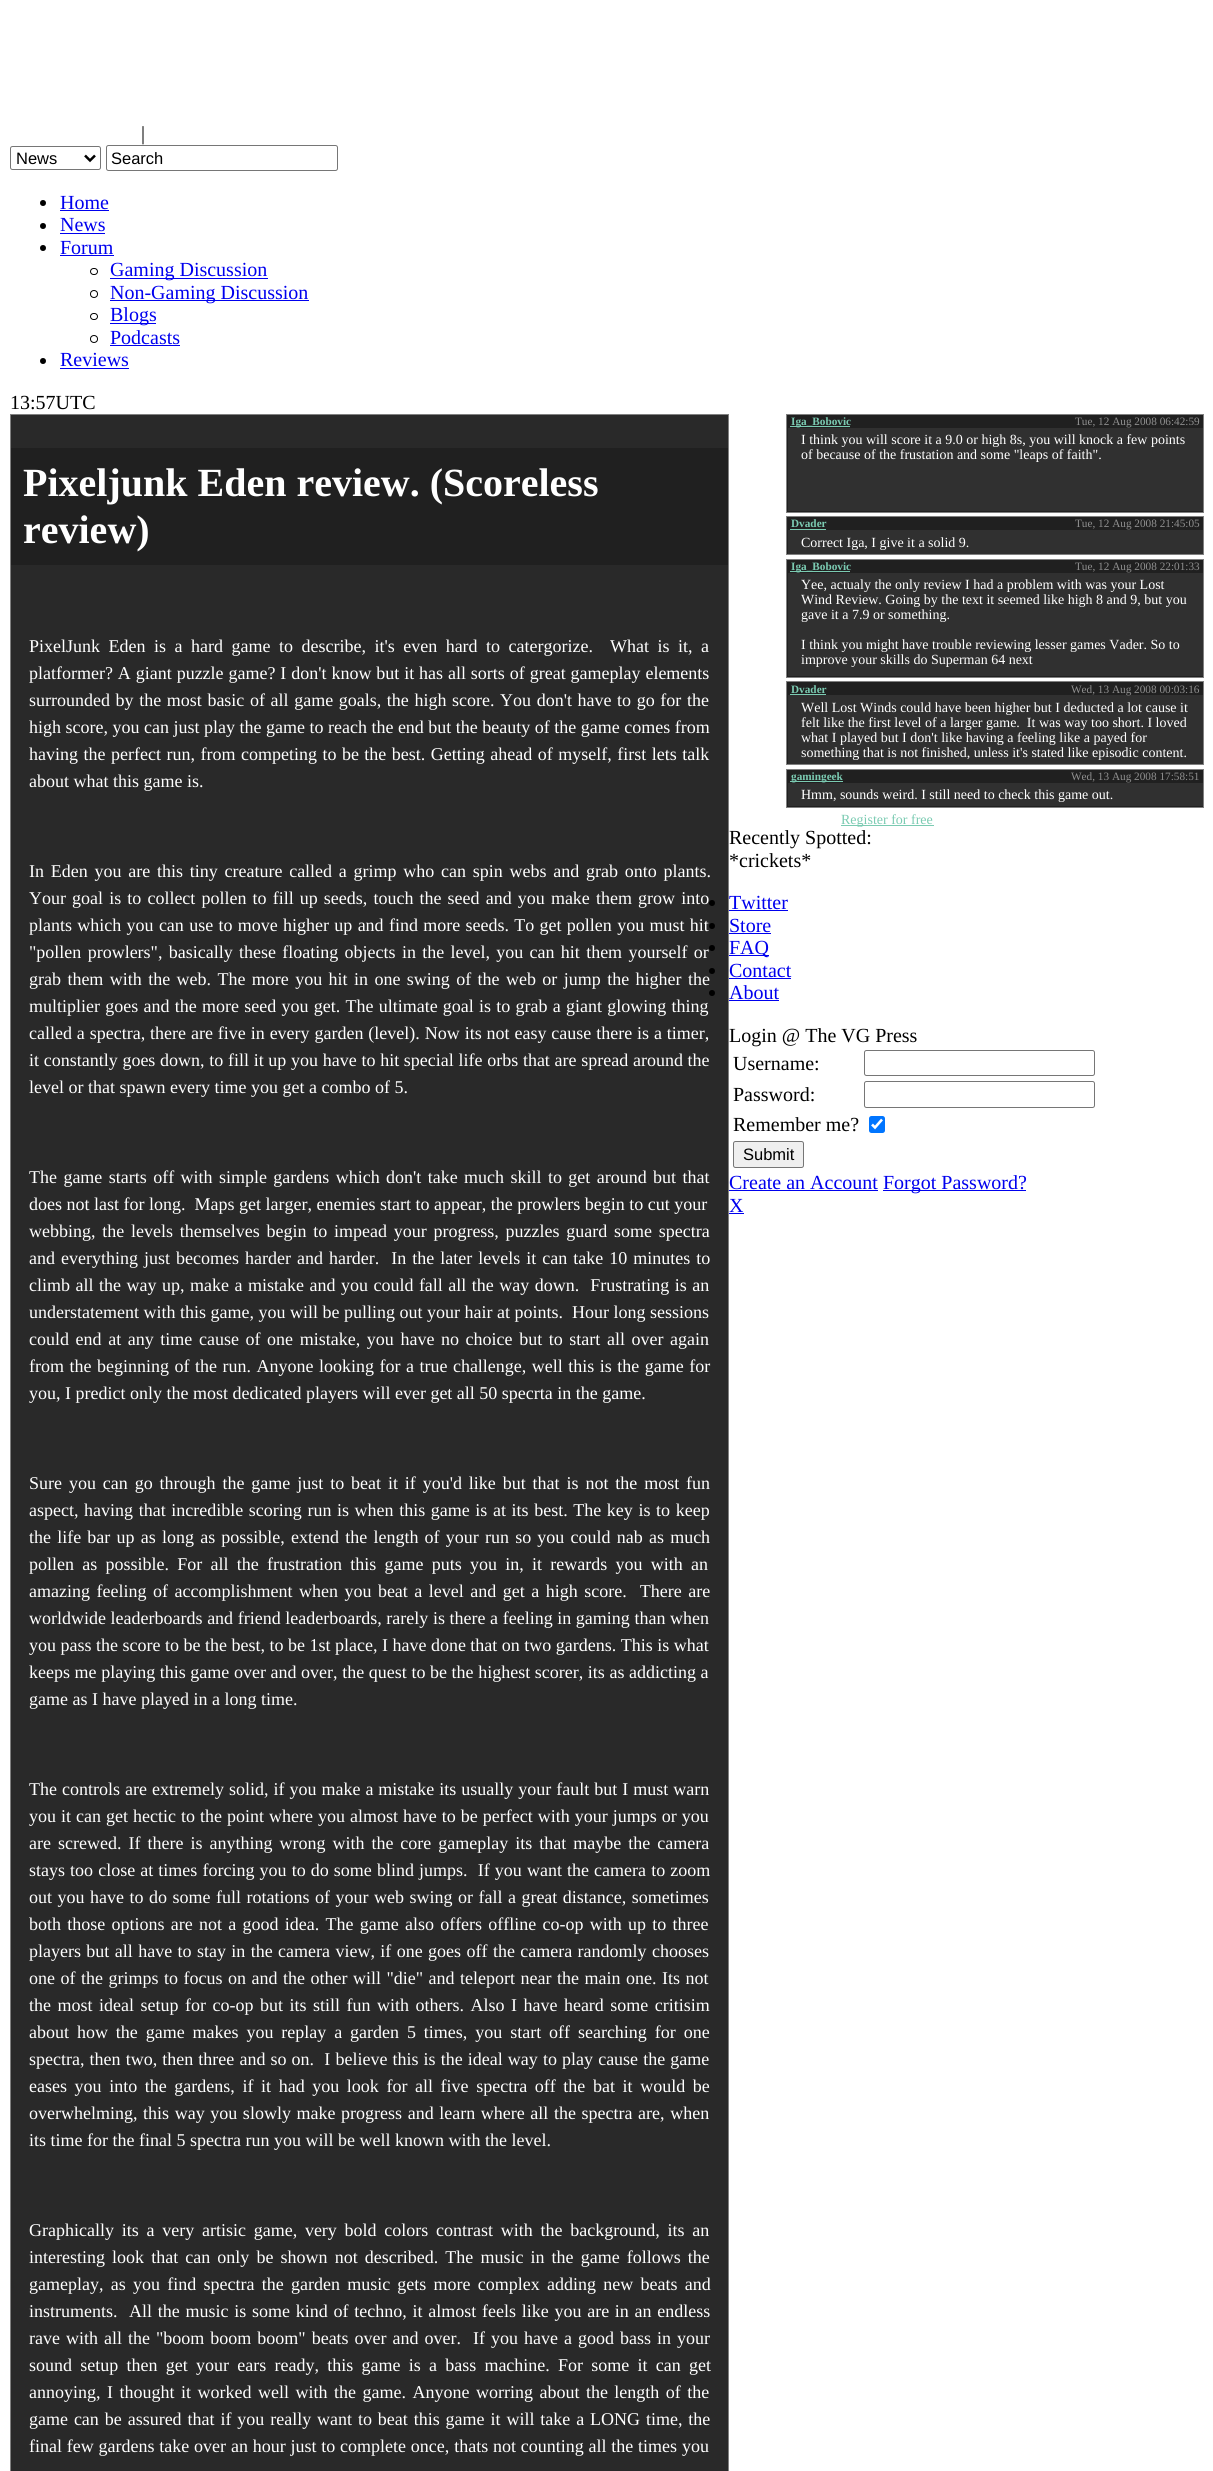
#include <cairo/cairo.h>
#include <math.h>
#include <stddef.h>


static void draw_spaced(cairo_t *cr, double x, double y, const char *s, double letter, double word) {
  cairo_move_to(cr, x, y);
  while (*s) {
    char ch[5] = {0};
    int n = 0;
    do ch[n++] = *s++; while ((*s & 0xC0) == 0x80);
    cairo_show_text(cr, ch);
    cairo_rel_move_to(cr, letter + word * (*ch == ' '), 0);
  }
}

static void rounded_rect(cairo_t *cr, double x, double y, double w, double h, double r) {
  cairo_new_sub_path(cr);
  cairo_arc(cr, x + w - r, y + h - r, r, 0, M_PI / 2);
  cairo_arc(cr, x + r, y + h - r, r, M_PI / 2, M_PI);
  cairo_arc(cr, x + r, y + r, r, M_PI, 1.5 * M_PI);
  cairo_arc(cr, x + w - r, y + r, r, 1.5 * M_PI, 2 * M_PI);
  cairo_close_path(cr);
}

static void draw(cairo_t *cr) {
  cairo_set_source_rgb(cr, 1, 1, 1);
  cairo_paint(cr);
  rounded_rect(cr, 10.5, 146.5, 90, 23, 2);
  cairo_set_source_rgb(cr, 118 / 255.0, 118 / 255.0, 118 / 255.0);
  cairo_set_line_width(cr, 1);
  cairo_stroke(cr);
  cairo_new_path(cr);
  cairo_move_to(cr, 85, 155.5);
  cairo_line_to(cr, 90, 160.5);
  cairo_line_to(cr, 95, 155.5);
  cairo_set_source_rgb(cr, 0, 0, 0);
  cairo_set_line_width(cr, 2.5);
  cairo_stroke(cr);
  rounded_rect(cr, 106.5, 145.5, 231, 25, 2);
  cairo_set_source_rgb(cr, 118 / 255.0, 118 / 255.0, 118 / 255.0);
  cairo_set_line_width(cr, 1);
  cairo_stroke(cr);
  cairo_set_source_rgb(cr, 0, 0, 0);
  cairo_arc(cr, 43, 203, 3, 0, 2 * M_PI);
  cairo_fill(cr);
  cairo_set_source_rgb(cr, 0, 0, 238 / 255.0);
  cairo_rectangle(cr, 60, 210, 49, 1);
  cairo_fill(cr);
  cairo_set_source_rgb(cr, 0, 0, 0);
  cairo_arc(cr, 43, 226, 3, 0, 2 * M_PI);
  cairo_fill(cr);
  cairo_set_source_rgb(cr, 0, 0, 238 / 255.0);
  cairo_rectangle(cr, 60, 233, 45, 1);
  cairo_fill(cr);
  cairo_set_source_rgb(cr, 0, 0, 0);
  cairo_arc(cr, 43, 248, 3, 0, 2 * M_PI);
  cairo_fill(cr);
  cairo_set_source_rgb(cr, 0, 0, 238 / 255.0);
  cairo_rectangle(cr, 60, 255, 54, 1);
  cairo_fill(cr);
  rounded_rect(cr, 90.5, 268.5, 7, 6, 3);
  cairo_set_source_rgb(cr, 0, 0, 0);
  cairo_stroke(cr);
  cairo_set_source_rgb(cr, 0, 0, 238 / 255.0);
  cairo_rectangle(cr, 110, 278, 158, 1);
  cairo_fill(cr);
  cairo_arc(cr, 94, 294, 3.5, 0, 2 * M_PI);
  cairo_set_source_rgb(cr, 0, 0, 0);
  cairo_stroke(cr);
  cairo_set_source_rgb(cr, 0, 0, 238 / 255.0);
  cairo_rectangle(cr, 110, 300, 199, 1);
  cairo_fill(cr);
  rounded_rect(cr, 90.5, 313.5, 7, 6, 3);
  cairo_set_source_rgb(cr, 0, 0, 0);
  cairo_stroke(cr);
  cairo_set_source_rgb(cr, 0, 0, 238 / 255.0);
  cairo_rectangle(cr, 110, 323, 46, 1);
  cairo_fill(cr);
  cairo_arc(cr, 94, 339, 3.5, 0, 2 * M_PI);
  cairo_set_source_rgb(cr, 0, 0, 0);
  cairo_stroke(cr);
  cairo_set_source_rgb(cr, 0, 0, 238 / 255.0);
  cairo_rectangle(cr, 110, 345, 70, 1);
  cairo_fill(cr);
  cairo_set_source_rgb(cr, 0, 0, 0);
  cairo_arc(cr, 43, 361, 3, 0, 2 * M_PI);
  cairo_fill(cr);
  cairo_set_source_rgb(cr, 0, 0, 238 / 255.0);
  cairo_rectangle(cr, 60, 368, 69, 1);
  cairo_fill(cr);
  cairo_set_source_rgb(cr, 41 / 255.0, 41 / 255.0, 41 / 255.0);
  cairo_rectangle(cr, 10.5, 414.5, 718, 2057);
  cairo_fill_preserve(cr);
  cairo_set_source_rgb(cr, 128 / 255.0, 128 / 255.0, 128 / 255.0);
  cairo_stroke(cr);
  cairo_set_source_rgb(cr, 32 / 255.0, 32 / 255.0, 32 / 255.0);
  cairo_rectangle(cr, 11, 448, 717, 117);
  cairo_fill(cr);
  cairo_rectangle(cr, 786.5, 414.5, 417, 98);
  cairo_fill_preserve(cr);
  cairo_set_source_rgb(cr, 128 / 255.0, 128 / 255.0, 128 / 255.0);
  cairo_stroke(cr);
  cairo_set_source_rgb(cr, 123 / 255.0, 203 / 255.0, 178 / 255.0);
  cairo_rectangle(cr, 790, 426, 60, 1);
  cairo_fill(cr);
  cairo_set_source_rgb(cr, 48 / 255.0, 48 / 255.0, 48 / 255.0);
  cairo_rectangle(cr, 788, 428, 415, 83);
  cairo_fill(cr);
  cairo_set_source_rgb(cr, 32 / 255.0, 32 / 255.0, 32 / 255.0);
  cairo_rectangle(cr, 786.5, 516.5, 417, 38);
  cairo_fill_preserve(cr);
  cairo_set_source_rgb(cr, 128 / 255.0, 128 / 255.0, 128 / 255.0);
  cairo_stroke(cr);
  cairo_set_source_rgb(cr, 123 / 255.0, 203 / 255.0, 178 / 255.0);
  cairo_rectangle(cr, 790, 529, 36, 1);
  cairo_fill(cr);
  cairo_set_source_rgb(cr, 48 / 255.0, 48 / 255.0, 48 / 255.0);
  cairo_rectangle(cr, 788, 530, 415, 24);
  cairo_fill(cr);
  cairo_set_source_rgb(cr, 32 / 255.0, 32 / 255.0, 32 / 255.0);
  cairo_rectangle(cr, 786.5, 559.5, 417, 118);
  cairo_fill_preserve(cr);
  cairo_set_source_rgb(cr, 128 / 255.0, 128 / 255.0, 128 / 255.0);
  cairo_stroke(cr);
  cairo_set_source_rgb(cr, 123 / 255.0, 203 / 255.0, 178 / 255.0);
  cairo_rectangle(cr, 790, 571, 60, 1);
  cairo_fill(cr);
  cairo_set_source_rgb(cr, 48 / 255.0, 48 / 255.0, 48 / 255.0);
  cairo_rectangle(cr, 788, 573, 415, 103);
  cairo_fill(cr);
  cairo_set_source_rgb(cr, 32 / 255.0, 32 / 255.0, 32 / 255.0);
  cairo_rectangle(cr, 786.5, 681.5, 417, 83);
  cairo_fill_preserve(cr);
  cairo_set_source_rgb(cr, 128 / 255.0, 128 / 255.0, 128 / 255.0);
  cairo_stroke(cr);
  cairo_set_source_rgb(cr, 123 / 255.0, 203 / 255.0, 178 / 255.0);
  cairo_rectangle(cr, 790, 694, 36, 1);
  cairo_fill(cr);
  cairo_set_source_rgb(cr, 48 / 255.0, 48 / 255.0, 48 / 255.0);
  cairo_rectangle(cr, 788, 695, 415, 69);
  cairo_fill(cr);
  cairo_set_source_rgb(cr, 32 / 255.0, 32 / 255.0, 32 / 255.0);
  cairo_rectangle(cr, 786.5, 769.5, 417, 38);
  cairo_fill_preserve(cr);
  cairo_set_source_rgb(cr, 128 / 255.0, 128 / 255.0, 128 / 255.0);
  cairo_stroke(cr);
  cairo_set_source_rgb(cr, 123 / 255.0, 203 / 255.0, 178 / 255.0);
  cairo_rectangle(cr, 790, 781, 53, 1);
  cairo_fill(cr);
  cairo_set_source_rgb(cr, 48 / 255.0, 48 / 255.0, 48 / 255.0);
  cairo_rectangle(cr, 788, 783, 415, 23);
  cairo_fill(cr);
  cairo_set_source_rgb(cr, 123 / 255.0, 203 / 255.0, 178 / 255.0);
  cairo_rectangle(cr, 841, 825, 93, 1);
  cairo_fill(cr);
  cairo_set_source_rgb(cr, 0, 0, 0);
  cairo_arc(cr, 712, 903, 3, 0, 2 * M_PI);
  cairo_fill(cr);
  cairo_set_source_rgb(cr, 0, 0, 238 / 255.0);
  cairo_rectangle(cr, 729, 910, 59, 1);
  cairo_fill(cr);
  cairo_set_source_rgb(cr, 0, 0, 0);
  cairo_arc(cr, 712, 926, 3, 0, 2 * M_PI);
  cairo_fill(cr);
  cairo_set_source_rgb(cr, 0, 0, 238 / 255.0);
  cairo_rectangle(cr, 729, 933, 42, 1);
  cairo_fill(cr);
  cairo_set_source_rgb(cr, 0, 0, 0);
  cairo_arc(cr, 712, 948, 3, 0, 2 * M_PI);
  cairo_fill(cr);
  cairo_set_source_rgb(cr, 0, 0, 238 / 255.0);
  cairo_rectangle(cr, 729, 955, 40, 1);
  cairo_fill(cr);
  cairo_set_source_rgb(cr, 0, 0, 0);
  cairo_arc(cr, 712, 971, 3, 0, 2 * M_PI);
  cairo_fill(cr);
  cairo_set_source_rgb(cr, 0, 0, 238 / 255.0);
  cairo_rectangle(cr, 729, 978, 62, 1);
  cairo_fill(cr);
  cairo_set_source_rgb(cr, 0, 0, 0);
  cairo_arc(cr, 712, 993, 3, 0, 2 * M_PI);
  cairo_fill(cr);
  cairo_set_source_rgb(cr, 0, 0, 238 / 255.0);
  cairo_rectangle(cr, 729, 1000, 50, 1);
  cairo_fill(cr);
  rounded_rect(cr, 864.5, 1050.5, 230, 25, 2);
  cairo_set_source_rgb(cr, 118 / 255.0, 118 / 255.0, 118 / 255.0);
  cairo_stroke(cr);
  rounded_rect(cr, 864.5, 1081.5, 230, 26, 2);
  cairo_stroke(cr);
  cairo_set_source_rgb(cr, 0, 117 / 255.0, 1);
  rounded_rect(cr, 869, 1116, 16, 17, 2.5);
  cairo_fill(cr);
  cairo_new_path(cr);
  cairo_move_to(cr, 872, 1124.5);
  cairo_line_to(cr, 875, 1127.5);
  cairo_line_to(cr, 882, 1119.5);
  cairo_set_source_rgb(cr, 1, 1, 1);
  cairo_set_line_width(cr, 2.6);
  cairo_stroke(cr);
  cairo_set_source_rgb(cr, 239 / 255.0, 239 / 255.0, 239 / 255.0);
  rounded_rect(cr, 733.5, 1141.5, 70, 26, 2);
  cairo_fill_preserve(cr);
  cairo_set_source_rgb(cr, 118 / 255.0, 118 / 255.0, 118 / 255.0);
  cairo_set_line_width(cr, 1);
  cairo_stroke(cr);
  cairo_set_source_rgb(cr, 0, 0, 238 / 255.0);
  cairo_rectangle(cr, 729, 1190, 149, 1);
  cairo_fill(cr);
  cairo_rectangle(cr, 883, 1190, 143, 1);
  cairo_fill(cr);
  cairo_rectangle(cr, 729, 1213, 15, 1);
  cairo_fill(cr);
  cairo_select_font_face(cr, "Liberation Serif", CAIRO_FONT_SLANT_NORMAL, CAIRO_FONT_WEIGHT_NORMAL);
  cairo_set_font_size(cr, 20);
  cairo_set_source_rgb(cr, 0, 0, 0);
  cairo_move_to(cr, 141, 140);
  cairo_show_text(cr, "|");
  cairo_select_font_face(cr, "Liberation Sans", CAIRO_FONT_SLANT_NORMAL, CAIRO_FONT_WEIGHT_NORMAL);
  cairo_set_font_size(cr, 16.5);
  cairo_move_to(cr, 16, 164);
  cairo_show_text(cr, "News");
  cairo_move_to(cr, 111, 164);
  cairo_show_text(cr, "Search");
  cairo_select_font_face(cr, "Liberation Serif", CAIRO_FONT_SLANT_NORMAL, CAIRO_FONT_WEIGHT_NORMAL);
  cairo_set_font_size(cr, 20);
  cairo_set_source_rgb(cr, 0, 0, 238 / 255.0);
  cairo_move_to(cr, 60, 209);
  cairo_show_text(cr, "Home");
  cairo_move_to(cr, 60, 231);
  cairo_show_text(cr, "News");
  cairo_move_to(cr, 60, 254);
  cairo_show_text(cr, "Forum");
  cairo_move_to(cr, 110, 276);
  cairo_show_text(cr, "Gaming Discussion");
  cairo_move_to(cr, 110, 299);
  cairo_show_text(cr, "Non-Gaming Discussion");
  cairo_move_to(cr, 110, 321);
  cairo_show_text(cr, "Blogs");
  cairo_move_to(cr, 110, 344);
  cairo_show_text(cr, "Podcasts");
  cairo_move_to(cr, 60, 366);
  cairo_show_text(cr, "Reviews");
  cairo_set_source_rgb(cr, 0, 0, 0);
  cairo_move_to(cr, 10, 409);
  cairo_show_text(cr, "13:57UTC");
  cairo_select_font_face(cr, "Liberation Serif", CAIRO_FONT_SLANT_NORMAL, CAIRO_FONT_WEIGHT_BOLD);
  cairo_set_font_size(cr, 40);
  cairo_set_source_rgb(cr, 1, 1, 1);
  cairo_move_to(cr, 23, 496);
  cairo_show_text(cr, "Pixeljunk Eden review. (Scoreless");
  cairo_move_to(cr, 23, 543);
  cairo_show_text(cr, "review)");
  cairo_select_font_face(cr, "Liberation Serif", CAIRO_FONT_SLANT_NORMAL, CAIRO_FONT_WEIGHT_NORMAL);
  cairo_set_font_size(cr, 18);
  draw_spaced(cr, 29, 652, "PixelJunk Eden is a hard game to describe, it's even hard to catergorize.  What is it, a", 0, 4);
  draw_spaced(cr, 29, 679, "platformer? A giant puzzle game? I don't know but it has all sorts of great gameplay elements", 0, 0.4);
  draw_spaced(cr, 29, 706, "surrounded by the most basic of all game goals, the high score. You don't have to go for the", 0, 1.1);
  cairo_move_to(cr, 29, 733);
  cairo_show_text(cr, "high score, you can just play the game to reach the end but the beauty of the game comes from");
  draw_spaced(cr, 29, 760, "having the perfect run, from competing to be the best. Getting ahead of myself, first lets talk", 0, 1);
  cairo_move_to(cr, 29, 787);
  cairo_show_text(cr, "about what this game is.");
  draw_spaced(cr, 29, 877, "In Eden you are this tiny creature called a grimp who can spin webs and grab onto plants.", 0, 2.25);
  draw_spaced(cr, 29, 904, "Your goal is to collect pollen to fill up seeds, touch the seed and you make them grow into", 0, 1.6);
  draw_spaced(cr, 29, 931, "plants which you can use to move higher up and find more seeds. To get pollen you must hit", 0, 0.8);
  draw_spaced(cr, 29, 958, "\"pollen prowlers\", basically these floating objects in the level, you can hit them yourself or", 0, 1.8);
  draw_spaced(cr, 29, 985, "grab them with the web. The more you hit in one swing of the web or jump the higher the", 0, 1.9);
  draw_spaced(cr, 29, 1012, "multiplier goes and the more seed you get. The ultimate goal is to grab a giant glowing thing", 0, 0.75);
  draw_spaced(cr, 29, 1039, "called a spectra, there are five in every garden (level). Now its not easy cause there is a timer,", 0, 0.4);
  draw_spaced(cr, 29, 1066, "it constantly goes down, to fill it up you have to hit special life orbs that are spread around the", 0, 0.2);
  cairo_move_to(cr, 29, 1093);
  cairo_show_text(cr, "level or that spawn every time you get a combo of 5.");
  draw_spaced(cr, 29, 1183, "The game starts off with simple gardens which don't take much skill to get around but that", 0, 1.9);
  cairo_move_to(cr, 29, 1210);
  cairo_show_text(cr, "does not last for long.  Maps get larger, enemies start to appear, the prowlers begin to cut your");
  draw_spaced(cr, 29, 1237, "webbing, the levels themselves begin to impead your progress, puzzles guard some spectra", 0, 2.25);
  draw_spaced(cr, 29, 1264, "and everything just becomes harder and harder.  In the later levels it can take 10 minutes to", 0, 1.5);
  draw_spaced(cr, 29, 1291, "climb all the way up, make a mistake and you could fall all the way down.  Frustrating is an", 0, 1);
  cairo_move_to(cr, 29, 1318);
  cairo_show_text(cr, "understatement with this game, you will be pulling out your hair at points.  Hour long sessions");
  draw_spaced(cr, 29, 1345, "could end at any time cause of one mistake, you have no choice but to start all over again", 0, 2.1);
  draw_spaced(cr, 29, 1372, "from the beginning of the run. Anyone looking for a true challenge, well this is the game for", 0, 1);
  cairo_move_to(cr, 29, 1399);
  cairo_show_text(cr, "you, I predict only the most dedicated players will ever get all 50 specrta in the game.");
  draw_spaced(cr, 29, 1489, "Sure you can go through the game just to beat it if you'd like but that is not the most fun", 0, 2.4);
  draw_spaced(cr, 29, 1516, "aspect, having that incredible scoring run is when this game is at its best. The key is to keep", 0, 1.1);
  draw_spaced(cr, 29, 1543, "the life bar up as long as possible, extend the length of your run so you could nab as much", 0, 1.7);
  draw_spaced(cr, 29, 1570, "pollen as possible. For all the frustration this game puts you in, it rewards you with an", 0, 3.75);
  draw_spaced(cr, 29, 1597, "amazing feeling of accomplishment when you beat a level and get a high score.  There are", 0, 2);
  draw_spaced(cr, 29, 1624, "worldwide leaderboards and friend leaderboards, rarely is there a feeling in gaming than when", 0, 0.1);
  cairo_move_to(cr, 29, 1651);
  cairo_show_text(cr, "you pass the score to be the best, to be 1st place, I have done that on two gardens. This is what");
  draw_spaced(cr, 29, 1678, "keeps me playing this game over and over, the quest to be the highest scorer, its as addicting a", 0, 0.1);
  cairo_move_to(cr, 29, 1705);
  cairo_show_text(cr, "game as I have played in a long time.");
  draw_spaced(cr, 29, 1795, "The controls are extremely solid, if you make a mistake its usually your fault but I must warn", 0, 0.5);
  draw_spaced(cr, 29, 1822, "you it can get hectic to the point where you almost have to be perfect with your jumps or you", 0, 0.5);
  draw_spaced(cr, 29, 1849, "are screwed. If there is anything wrong with the core gameplay its that maybe the camera", 0, 2.5);
  draw_spaced(cr, 29, 1876, "stays too close at times forcing you to do some blind jumps.  If you want the camera to zoom", 0, 0.6);
  draw_spaced(cr, 29, 1903, "out you have to do some full rotations of your web swing or fall a great distance, sometimes", 0, 1);
  draw_spaced(cr, 29, 1930, "both those options are not a good idea. The game also offers offline co-op with up to three", 0, 1.75);
  draw_spaced(cr, 29, 1957, "players but all have to stay in the camera view, if one goes off the camera randomly chooses", 0, 0.9);
  draw_spaced(cr, 29, 1984, "one of the grimps to focus on and the other will \"die\" and teleport near the main one. Its not", 0, 1);
  draw_spaced(cr, 29, 2011, "the most ideal setup for co-op but its still fun with others. Also I have heard some critisim", 0, 2);
  draw_spaced(cr, 29, 2038, "about how the game makes you replay a garden 5 times, you start off searching for one", 0, 3.4);
  draw_spaced(cr, 29, 2065, "spectra, then two, then three and so on.  I believe this is the ideal way to play cause the game", 0, 0.6);
  draw_spaced(cr, 29, 2092, "eases you into the gardens, if it had you look for all five spectra off the bat it would be", 0, 3.1);
  draw_spaced(cr, 29, 2119, "overwhelming, this way you slowly make progress and learn where all the spectra are, when", 0, 1.1);
  cairo_move_to(cr, 29, 2146);
  cairo_show_text(cr, "its time for the final 5 spectra run you will be well known with the level.");
  draw_spaced(cr, 29, 2236, "Graphically its a very artisic game, very bold colors contrast with the background, its an", 0, 3.25);
  draw_spaced(cr, 29, 2263, "interesting look that can only be shown not described. The music in the game follows the", 0, 2.6);
  draw_spaced(cr, 29, 2290, "gameplay, as you find spectra the garden music gets more complex adding new beats and", 0, 2.75);
  draw_spaced(cr, 29, 2317, "instruments.  All the music is some kind of techno, it almost feels like you are in an endless", 0, 1.25);
  draw_spaced(cr, 29, 2344, "rave with all the \"boom boom boom\" beats over and over.  If you have a good bass in your", 0, 1.5);
  draw_spaced(cr, 29, 2371, "sound setup then get your ears ready, this game is a bass machine. For some it can get", 0, 3.75);
  draw_spaced(cr, 29, 2398, "annoying, I thought it worked well with the game. Anyone worring about the length of the", 0, 2);
  draw_spaced(cr, 29, 2425, "game can be assured that if you really want to beat this game it will take a LONG time, the", 0, 1.4);
  draw_spaced(cr, 29, 2452, "final few gardens take over an hour just to complete once, thats not counting all the times you", 0, 0.3);
  cairo_select_font_face(cr, "Liberation Serif", CAIRO_FONT_SLANT_NORMAL, CAIRO_FONT_WEIGHT_BOLD);
  cairo_set_font_size(cr, 11.25);
  cairo_set_source_rgb(cr, 123 / 255.0, 203 / 255.0, 178 / 255.0);
  cairo_move_to(cr, 791, 425);
  cairo_show_text(cr, "Iga_Bobovic");
  cairo_select_font_face(cr, "Liberation Serif", CAIRO_FONT_SLANT_NORMAL, CAIRO_FONT_WEIGHT_NORMAL);
  cairo_set_source_rgb(cr, 144 / 255.0, 144 / 255.0, 144 / 255.0);
  cairo_move_to(cr, 1075, 425);
  cairo_show_text(cr, "Tue, 12 Aug 2008 06:42:59");
  cairo_set_font_size(cr, 14);
  cairo_set_source_rgb(cr, 1, 1, 1);
  cairo_move_to(cr, 801, 444);
  cairo_show_text(cr, "I think you will score it a 9.0 or high 8s, you will knock a few points");
  cairo_move_to(cr, 801, 459);
  cairo_show_text(cr, "of because of the frustation and some \"leaps of faith\".");
  cairo_select_font_face(cr, "Liberation Serif", CAIRO_FONT_SLANT_NORMAL, CAIRO_FONT_WEIGHT_BOLD);
  cairo_set_font_size(cr, 11.25);
  cairo_set_source_rgb(cr, 123 / 255.0, 203 / 255.0, 178 / 255.0);
  cairo_move_to(cr, 791, 527);
  cairo_show_text(cr, "Dvader");
  cairo_select_font_face(cr, "Liberation Serif", CAIRO_FONT_SLANT_NORMAL, CAIRO_FONT_WEIGHT_NORMAL);
  cairo_set_source_rgb(cr, 144 / 255.0, 144 / 255.0, 144 / 255.0);
  cairo_move_to(cr, 1075, 527);
  cairo_show_text(cr, "Tue, 12 Aug 2008 21:45:05");
  cairo_set_font_size(cr, 14);
  cairo_set_source_rgb(cr, 1, 1, 1);
  cairo_move_to(cr, 801, 547);
  cairo_show_text(cr, "Correct Iga, I give it a solid 9.");
  cairo_select_font_face(cr, "Liberation Serif", CAIRO_FONT_SLANT_NORMAL, CAIRO_FONT_WEIGHT_BOLD);
  cairo_set_font_size(cr, 11.25);
  cairo_set_source_rgb(cr, 123 / 255.0, 203 / 255.0, 178 / 255.0);
  cairo_move_to(cr, 791, 570);
  cairo_show_text(cr, "Iga_Bobovic");
  cairo_select_font_face(cr, "Liberation Serif", CAIRO_FONT_SLANT_NORMAL, CAIRO_FONT_WEIGHT_NORMAL);
  cairo_set_source_rgb(cr, 144 / 255.0, 144 / 255.0, 144 / 255.0);
  cairo_move_to(cr, 1075, 570);
  cairo_show_text(cr, "Tue, 12 Aug 2008 22:01:33");
  cairo_set_font_size(cr, 14);
  cairo_set_source_rgb(cr, 1, 1, 1);
  cairo_move_to(cr, 801, 589);
  cairo_show_text(cr, "Yee, actualy the only review I had a problem with was your Lost");
  cairo_move_to(cr, 801, 604);
  cairo_show_text(cr, "Wind Review. Going by the text it seemed like high 8 and 9, but you");
  cairo_move_to(cr, 801, 619);
  cairo_show_text(cr, "gave it a 7.9 or something.");
  cairo_move_to(cr, 801, 649);
  cairo_show_text(cr, "I think you might have trouble reviewing lesser games Vader. So to");
  cairo_move_to(cr, 801, 664);
  cairo_show_text(cr, "improve your skills do Superman 64 next");
  cairo_select_font_face(cr, "Liberation Serif", CAIRO_FONT_SLANT_NORMAL, CAIRO_FONT_WEIGHT_BOLD);
  cairo_set_font_size(cr, 11.25);
  cairo_set_source_rgb(cr, 123 / 255.0, 203 / 255.0, 178 / 255.0);
  cairo_move_to(cr, 791, 693);
  cairo_show_text(cr, "Dvader");
  cairo_select_font_face(cr, "Liberation Serif", CAIRO_FONT_SLANT_NORMAL, CAIRO_FONT_WEIGHT_NORMAL);
  cairo_set_source_rgb(cr, 144 / 255.0, 144 / 255.0, 144 / 255.0);
  cairo_move_to(cr, 1071, 693);
  cairo_show_text(cr, "Wed, 13 Aug 2008 00:03:16");
  cairo_set_font_size(cr, 14);
  cairo_set_source_rgb(cr, 1, 1, 1);
  cairo_move_to(cr, 801, 712);
  cairo_show_text(cr, "Well Lost Winds could have been higher but I deducted a lot cause it");
  cairo_move_to(cr, 801, 727);
  cairo_show_text(cr, "felt like the first level of a larger game.  It was way too short. I loved");
  cairo_move_to(cr, 801, 742);
  cairo_show_text(cr, "what I played but I don't like having a feeling like a payed for");
  cairo_move_to(cr, 801, 757);
  cairo_show_text(cr, "something that is not finished, unless it's stated like episodic content.");
  cairo_select_font_face(cr, "Liberation Serif", CAIRO_FONT_SLANT_NORMAL, CAIRO_FONT_WEIGHT_BOLD);
  cairo_set_font_size(cr, 11.25);
  cairo_set_source_rgb(cr, 123 / 255.0, 203 / 255.0, 178 / 255.0);
  cairo_move_to(cr, 791, 780);
  cairo_show_text(cr, "gamingeek");
  cairo_select_font_face(cr, "Liberation Serif", CAIRO_FONT_SLANT_NORMAL, CAIRO_FONT_WEIGHT_NORMAL);
  cairo_set_source_rgb(cr, 144 / 255.0, 144 / 255.0, 144 / 255.0);
  cairo_move_to(cr, 1071, 780);
  cairo_show_text(cr, "Wed, 13 Aug 2008 17:58:51");
  cairo_set_font_size(cr, 14);
  cairo_set_source_rgb(cr, 1, 1, 1);
  cairo_move_to(cr, 801, 799);
  cairo_show_text(cr, "Hmm, sounds weird. I still need to check this game out.");
  cairo_set_source_rgb(cr, 123 / 255.0, 203 / 255.0, 178 / 255.0);
  cairo_move_to(cr, 841, 824);
  cairo_show_text(cr, "Register for free");
  cairo_set_font_size(cr, 20);
  cairo_set_source_rgb(cr, 0, 0, 0);
  cairo_move_to(cr, 729, 844);
  cairo_show_text(cr, "Recently Spotted:");
  cairo_move_to(cr, 729, 867);
  cairo_show_text(cr, "*crickets*");
  cairo_set_source_rgb(cr, 0, 0, 238 / 255.0);
  cairo_move_to(cr, 729, 909);
  cairo_show_text(cr, "Twitter");
  cairo_move_to(cr, 729, 932);
  cairo_show_text(cr, "Store");
  cairo_move_to(cr, 729, 954);
  cairo_show_text(cr, "FAQ");
  cairo_move_to(cr, 729, 977);
  cairo_show_text(cr, "Contact");
  cairo_move_to(cr, 729, 999);
  cairo_show_text(cr, "About");
  cairo_set_source_rgb(cr, 0, 0, 0);
  cairo_move_to(cr, 729, 1042);
  cairo_show_text(cr, "Login @ The VG Press");
  cairo_move_to(cr, 733, 1070);
  cairo_show_text(cr, "Username:");
  cairo_move_to(cr, 733, 1101);
  cairo_show_text(cr, "Password:");
  cairo_move_to(cr, 733, 1131);
  cairo_show_text(cr, "Remember me?");
  cairo_select_font_face(cr, "Liberation Sans", CAIRO_FONT_SLANT_NORMAL, CAIRO_FONT_WEIGHT_NORMAL);
  cairo_set_font_size(cr, 16.5);
  cairo_move_to(cr, 743, 1160);
  cairo_show_text(cr, "Submit");
  cairo_select_font_face(cr, "Liberation Serif", CAIRO_FONT_SLANT_NORMAL, CAIRO_FONT_WEIGHT_NORMAL);
  cairo_set_font_size(cr, 20);
  cairo_set_source_rgb(cr, 0, 0, 238 / 255.0);
  cairo_move_to(cr, 729, 1189);
  cairo_show_text(cr, "Create an Account");
  cairo_move_to(cr, 883, 1189);
  cairo_show_text(cr, "Forgot Password?");
  cairo_move_to(cr, 729, 1212);
  cairo_show_text(cr, "X");
}

int main(void) {
  cairo_surface_t *surface = cairo_image_surface_create(CAIRO_FORMAT_RGB24, 1213, 2471);
  cairo_t *cr = cairo_create(surface);
  cairo_font_options_t *options = cairo_font_options_create();
  cairo_font_options_set_hint_metrics(options, CAIRO_HINT_METRICS_OFF);
  cairo_font_options_set_hint_style(options, CAIRO_HINT_STYLE_NONE);
  cairo_set_font_options(cr, options);
  cairo_set_miter_limit(cr, 4);
  draw(cr);
  cairo_surface_write_to_png(surface, "out.png");
  cairo_font_options_destroy(options);
  cairo_destroy(cr);
  cairo_surface_destroy(surface);
  return 0;
}
